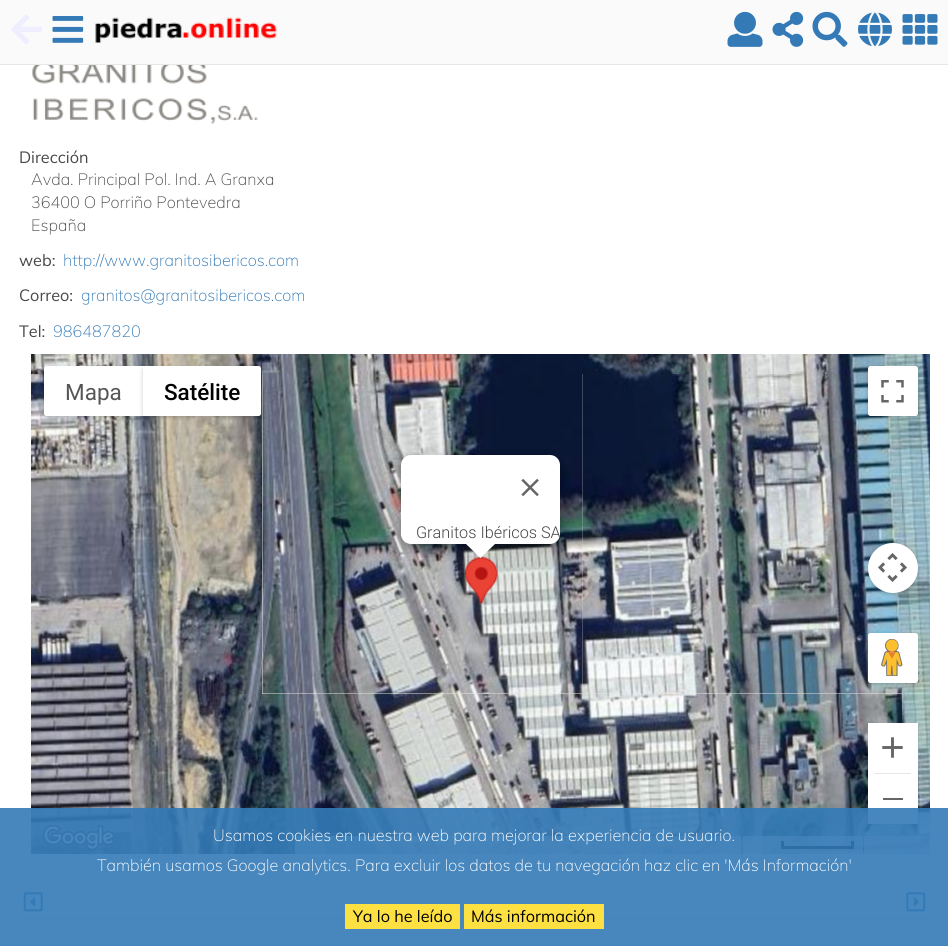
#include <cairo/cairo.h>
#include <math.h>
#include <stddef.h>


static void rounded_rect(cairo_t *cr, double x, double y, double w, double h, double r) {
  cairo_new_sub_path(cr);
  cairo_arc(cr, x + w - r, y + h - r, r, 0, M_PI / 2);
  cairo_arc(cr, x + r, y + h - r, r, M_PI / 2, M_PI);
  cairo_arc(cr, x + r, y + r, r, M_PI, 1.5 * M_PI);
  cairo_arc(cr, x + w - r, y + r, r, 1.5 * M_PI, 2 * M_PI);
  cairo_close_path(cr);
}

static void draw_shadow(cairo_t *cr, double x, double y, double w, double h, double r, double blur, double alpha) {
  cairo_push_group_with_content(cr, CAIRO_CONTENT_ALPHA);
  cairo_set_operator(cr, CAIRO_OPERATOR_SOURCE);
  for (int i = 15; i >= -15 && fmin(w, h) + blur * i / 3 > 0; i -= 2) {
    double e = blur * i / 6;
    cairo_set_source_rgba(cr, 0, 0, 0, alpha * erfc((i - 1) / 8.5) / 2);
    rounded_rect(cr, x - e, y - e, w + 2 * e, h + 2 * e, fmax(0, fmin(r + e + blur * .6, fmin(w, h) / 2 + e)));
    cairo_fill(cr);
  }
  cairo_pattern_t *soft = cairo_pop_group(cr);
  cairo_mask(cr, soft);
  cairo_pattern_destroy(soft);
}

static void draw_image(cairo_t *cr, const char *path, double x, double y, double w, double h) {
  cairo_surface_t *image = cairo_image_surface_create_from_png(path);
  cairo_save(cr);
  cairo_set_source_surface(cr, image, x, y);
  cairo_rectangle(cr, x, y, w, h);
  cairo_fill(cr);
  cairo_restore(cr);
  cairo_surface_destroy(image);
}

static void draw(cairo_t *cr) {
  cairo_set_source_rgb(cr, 1, 1, 1);
  cairo_paint(cr);
  cairo_set_source_rgb(cr, 250 / 255.0, 250 / 255.0, 250 / 255.0);
  cairo_rectangle(cr, 0, 0, 948, 64);
  cairo_fill(cr);
  cairo_set_source_rgb(cr, 231 / 255.0, 231 / 255.0, 231 / 255.0);
  cairo_rectangle(cr, 0, 64, 948, 1);
  cairo_fill(cr);
  draw_image(cr, "images/1.png", 11, 14, 31, 30);
  draw_image(cr, "images/2.png", 52, 16, 32, 27);
  draw_image(cr, "images/3.png", 95, 17, 182, 26);
  draw_image(cr, "images/4.png", 727, 11, 36, 36);
  draw_image(cr, "images/5.png", 772, 11, 32, 36);
  draw_image(cr, "images/6.png", 812, 11, 36, 36);
  draw_image(cr, "images/7.png", 858, 12, 34, 35);
  draw_image(cr, "images/8.png", 902, 14, 36, 31);
  draw_image(cr, "images/9.png", 31, 65, 227, 59);
  cairo_set_source_rgb(cr, 229 / 255.0, 227 / 255.0, 223 / 255.0);
  cairo_rectangle(cr, 262, 374, 640, 320);
  cairo_fill(cr);
  draw_image(cr, "images/11.png", 31, 354, 231, 20);
  draw_image(cr, "images/15.png", 31, 374, 231, 320);
  cairo_set_source_rgb(cr, 0, 0, 0);
  draw_shadow(cr, 45, 369, 96, 47, 1, 2.5, 0.3);
  cairo_set_source_rgb(cr, 1, 1, 1);
  cairo_new_path(cr);
  cairo_move_to(cr, 46.5, 366);
  cairo_line_to(cr, 143, 366);
  cairo_line_to(cr, 143, 416);
  cairo_line_to(cr, 46.5, 416);
  cairo_curve_to(cr, 45, 416, 44, 415, 44, 413.5);
  cairo_line_to(cr, 44, 368.5);
  cairo_curve_to(cr, 44, 367, 45, 366, 46.5, 366);
  cairo_close_path(cr);
  cairo_fill(cr);
  draw_image(cr, "images/12.png", 262, 354, 320, 20);
  draw_image(cr, "images/17.png", 582, 374, 320, 320);
  draw_image(cr, "images/16.png", 262, 374, 321, 320);
  cairo_set_source_rgb(cr, 0, 0, 0);
  draw_shadow(cr, 144, 369, 116, 47, 1, 2.5, 0.3);
  cairo_set_source_rgb(cr, 1, 1, 1);
  cairo_new_path(cr);
  cairo_move_to(cr, 143, 366);
  cairo_line_to(cr, 258.5, 366);
  cairo_curve_to(cr, 260, 366, 261, 367, 261, 368.5);
  cairo_line_to(cr, 261, 413.5);
  cairo_curve_to(cr, 261, 415, 260, 416, 258.5, 416);
  cairo_line_to(cr, 143, 416);
  cairo_close_path(cr);
  cairo_fill(cr);
  draw_image(cr, "images/13.png", 582, 354, 320, 20);
  draw_image(cr, "images/14.png", 902, 354, 28, 20);
  draw_image(cr, "images/18.png", 902, 374, 28, 320);
  cairo_set_source_rgb(cr, 0, 0, 0);
  draw_shadow(cr, 869, 369, 47, 47, 1, 2.5, 0.3);
  cairo_set_source_rgb(cr, 1, 1, 1);
  rounded_rect(cr, 868, 366, 50, 50, 2.5);
  cairo_fill(cr);
  draw_image(cr, "images/10.png", 881, 380, 23, 23);
  draw_image(cr, "images/19.png", 31, 694, 231, 160);
  draw_image(cr, "images/20.png", 262, 694, 320, 160);
  draw_image(cr, "images/21.png", 582, 694, 320, 160);
  draw_image(cr, "images/22.png", 902, 694, 28, 160);
  draw_image(cr, "images/23.png", 465, 557, 33, 47);
  cairo_set_source_rgb(cr, 0, 0, 0);
  draw_shadow(cr, 400, 456, 161, 92, 11, 4.5, 0.3);
  cairo_set_source_rgb(cr, 1, 1, 1);
  rounded_rect(cr, 401, 455, 159, 89, 10);
  cairo_fill(cr);
  draw_image(cr, "images/24.png", 521, 478, 18, 19);
  cairo_new_path(cr);
  cairo_move_to(cr, 466, 543);
  cairo_line_to(cr, 466, 544);
  cairo_line_to(cr, 480.5, 558);
  cairo_line_to(cr, 496, 543);
  cairo_close_path(cr);
  cairo_fill(cr);
  cairo_set_source_rgb(cr, 0, 0, 0);
  draw_shadow(cr, 869, 545, 47, 48, 23.5, 2.5, 0.3);
  cairo_set_source_rgb(cr, 1, 1, 1);
  cairo_arc(cr, 893, 568, 25, 0, 2 * M_PI);
  cairo_fill(cr);
  draw_image(cr, "images/25.png", 878, 553, 29, 29);
  cairo_set_source_rgb(cr, 0, 0, 0);
  draw_shadow(cr, 869, 635, 47, 48, 1, 2.5, 0.3);
  cairo_set_source_rgb(cr, 1, 1, 1);
  rounded_rect(cr, 868, 633, 50, 50, 2.5);
  cairo_fill(cr);
  draw_image(cr, "images/26.png", 881, 639, 22, 37);
  cairo_set_source_rgb(cr, 0, 0, 0);
  draw_shadow(cr, 869, 725, 47, 99, 1, 2.5, 0.3);
  cairo_set_source_rgb(cr, 1, 1, 1);
  cairo_rectangle(cr, 868, 723, 50, 101);
  cairo_fill(cr);
  draw_image(cr, "images/27.png", 882, 737, 21, 21);
  cairo_set_source_rgb(cr, 230 / 255.0, 230 / 255.0, 230 / 255.0);
  cairo_rectangle(cr, 874, 773, 37, 1);
  cairo_fill(cr);
  cairo_set_source_rgb(cr, 102 / 255.0, 102 / 255.0, 102 / 255.0);
  cairo_rectangle(cr, 883, 798, 20, 2);
  cairo_fill(cr);
  draw_image(cr, "images/28.png", 42, 824, 74, 27);
  cairo_set_source_rgba(cr, 245 / 255.0, 245 / 255.0, 245 / 255.0, 0.7);
  cairo_rectangle(cr, 295, 836, 154, 18);
  cairo_fill(cr);
  cairo_rectangle(cr, 450, 836, 291, 18);
  cairo_fill(cr);
  cairo_rectangle(cr, 743, 836, 120, 18);
  cairo_fill(cr);
  cairo_set_source_rgb(cr, 0, 0, 0);
  cairo_rectangle(cr, 781, 846, 73, 3);
  cairo_fill(cr);
  cairo_rectangle(cr, 781, 841, 3, 8);
  cairo_fill(cr);
  cairo_rectangle(cr, 851, 841, 3, 8);
  cairo_fill(cr);
  cairo_set_source_rgba(cr, 245 / 255.0, 245 / 255.0, 245 / 255.0, 0.7);
  cairo_rectangle(cr, 864, 836, 66, 18);
  cairo_fill(cr);
  cairo_set_source_rgb(cr, 238 / 255.0, 238 / 255.0, 238 / 255.0);
  cairo_rectangle(cr, 19, 885, 911, 1);
  cairo_fill(cr);
  cairo_rectangle(cr, 19, 919, 911, 1);
  cairo_fill(cr);
  draw_image(cr, "images/29.png", 23, 892, 20, 20);
  draw_image(cr, "images/30.png", 906, 892, 20, 20);
  cairo_set_source_rgb(cr, 229 / 255.0, 229 / 255.0, 229 / 255.0);
  cairo_rectangle(cr, 0, 945, 948, 1);
  cairo_fill(cr);
  cairo_set_source_rgba(cr, 51 / 255.0, 122 / 255.0, 183 / 255.0, 0.9);
  cairo_rectangle(cr, 0, 808, 948, 138);
  cairo_fill(cr);
  cairo_set_source_rgb(cr, 253 / 255.0, 225 / 255.0, 67 / 255.0);
  cairo_rectangle(cr, 345, 904, 115, 25);
  cairo_fill(cr);
  cairo_rectangle(cr, 464, 904, 140, 25);
  cairo_fill(cr);
  cairo_select_font_face(cr, "Muli", CAIRO_FONT_SLANT_NORMAL, CAIRO_FONT_WEIGHT_NORMAL);
  cairo_set_font_size(cr, 16.25);
  cairo_set_source_rgb(cr, 72 / 255.0, 72 / 255.0, 72 / 255.0);
  cairo_move_to(cr, 19, 163);
  cairo_show_text(cr, "Dirección");
  cairo_select_font_face(cr, "Muli ExtraLight", CAIRO_FONT_SLANT_NORMAL, CAIRO_FONT_WEIGHT_NORMAL);
  cairo_move_to(cr, 31, 185);
  cairo_show_text(cr, "Avda. Principal Pol. Ind. A Granxa");
  cairo_move_to(cr, 31, 208);
  cairo_show_text(cr, "36400 O Porriño Pontevedra");
  cairo_move_to(cr, 31, 231);
  cairo_show_text(cr, "España");
  cairo_select_font_face(cr, "Muli", CAIRO_FONT_SLANT_NORMAL, CAIRO_FONT_WEIGHT_NORMAL);
  cairo_move_to(cr, 19, 266);
  cairo_show_text(cr, "web:");
  cairo_select_font_face(cr, "Muli ExtraLight", CAIRO_FONT_SLANT_NORMAL, CAIRO_FONT_WEIGHT_NORMAL);
  cairo_set_source_rgb(cr, 51 / 255.0, 122 / 255.0, 183 / 255.0);
  cairo_move_to(cr, 63, 266);
  cairo_show_text(cr, "http://www.granitosibericos.com");
  cairo_select_font_face(cr, "Muli", CAIRO_FONT_SLANT_NORMAL, CAIRO_FONT_WEIGHT_NORMAL);
  cairo_set_source_rgb(cr, 72 / 255.0, 72 / 255.0, 72 / 255.0);
  cairo_move_to(cr, 19, 301);
  cairo_show_text(cr, "Correo:");
  cairo_select_font_face(cr, "Muli ExtraLight", CAIRO_FONT_SLANT_NORMAL, CAIRO_FONT_WEIGHT_NORMAL);
  cairo_set_source_rgb(cr, 51 / 255.0, 122 / 255.0, 183 / 255.0);
  cairo_move_to(cr, 81, 301);
  cairo_show_text(cr, "granitos@granitosibericos.com");
  cairo_select_font_face(cr, "Muli", CAIRO_FONT_SLANT_NORMAL, CAIRO_FONT_WEIGHT_NORMAL);
  cairo_set_source_rgb(cr, 72 / 255.0, 72 / 255.0, 72 / 255.0);
  cairo_move_to(cr, 19, 337);
  cairo_show_text(cr, "Tel:");
  cairo_select_font_face(cr, "Muli ExtraLight", CAIRO_FONT_SLANT_NORMAL, CAIRO_FONT_WEIGHT_NORMAL);
  cairo_set_source_rgb(cr, 51 / 255.0, 122 / 255.0, 183 / 255.0);
  cairo_move_to(cr, 53, 337);
  cairo_show_text(cr, "986487820");
  cairo_select_font_face(cr, "Roboto", CAIRO_FONT_SLANT_NORMAL, CAIRO_FONT_WEIGHT_NORMAL);
  cairo_set_font_size(cr, 22.5);
  cairo_set_source_rgb(cr, 86 / 255.0, 86 / 255.0, 86 / 255.0);
  cairo_move_to(cr, 65, 400);
  cairo_show_text(cr, "Mapa");
  cairo_select_font_face(cr, "Roboto Medium", CAIRO_FONT_SLANT_NORMAL, CAIRO_FONT_WEIGHT_NORMAL);
  cairo_set_source_rgb(cr, 0, 0, 0);
  cairo_move_to(cr, 164, 400);
  cairo_show_text(cr, "Satélite");
  cairo_save(cr);
  rounded_rect(cr, 401, 455, 159, 89, 10);
  cairo_clip(cr);
  cairo_select_font_face(cr, "Roboto Light", CAIRO_FONT_SLANT_NORMAL, CAIRO_FONT_WEIGHT_NORMAL);
  cairo_set_font_size(cr, 16.25);
  cairo_set_source_rgb(cr, 72 / 255.0, 72 / 255.0, 72 / 255.0);
  cairo_move_to(cr, 416, 538);
  cairo_show_text(cr, "Granitos Ibéricos SA");
  cairo_restore(cr);
  cairo_select_font_face(cr, "Muli ExtraLight", CAIRO_FONT_SLANT_NORMAL, CAIRO_FONT_WEIGHT_NORMAL);
  cairo_set_font_size(cr, 16.25);
  cairo_set_source_rgb(cr, 1, 1, 1);
  cairo_move_to(cr, 213, 841);
  cairo_show_text(cr, "Usamos cookies en nuestra web para mejorar la experiencia de usuario.");
  cairo_move_to(cr, 97, 871);
  cairo_show_text(cr, "También usamos Google analytics. Para excluir los datos de tu navegación haz clic en 'Más Información'");
  cairo_select_font_face(cr, "Muli", CAIRO_FONT_SLANT_NORMAL, CAIRO_FONT_WEIGHT_NORMAL);
  cairo_set_source_rgb(cr, 0, 0, 0);
  cairo_move_to(cr, 353, 922);
  cairo_show_text(cr, "Ya lo he leído");
  cairo_move_to(cr, 471, 922);
  cairo_show_text(cr, "Más información");
}

int main(void) {
  cairo_surface_t *surface = cairo_image_surface_create(CAIRO_FORMAT_RGB24, 948, 946);
  cairo_t *cr = cairo_create(surface);
  cairo_font_options_t *options = cairo_font_options_create();
  cairo_font_options_set_hint_metrics(options, CAIRO_HINT_METRICS_OFF);
  cairo_font_options_set_hint_style(options, CAIRO_HINT_STYLE_NONE);
  cairo_set_font_options(cr, options);
  cairo_set_miter_limit(cr, 4);
  draw(cr);
  cairo_surface_write_to_png(surface, "out.png");
  cairo_font_options_destroy(options);
  cairo_destroy(cr);
  cairo_surface_destroy(surface);
  return 0;
}
